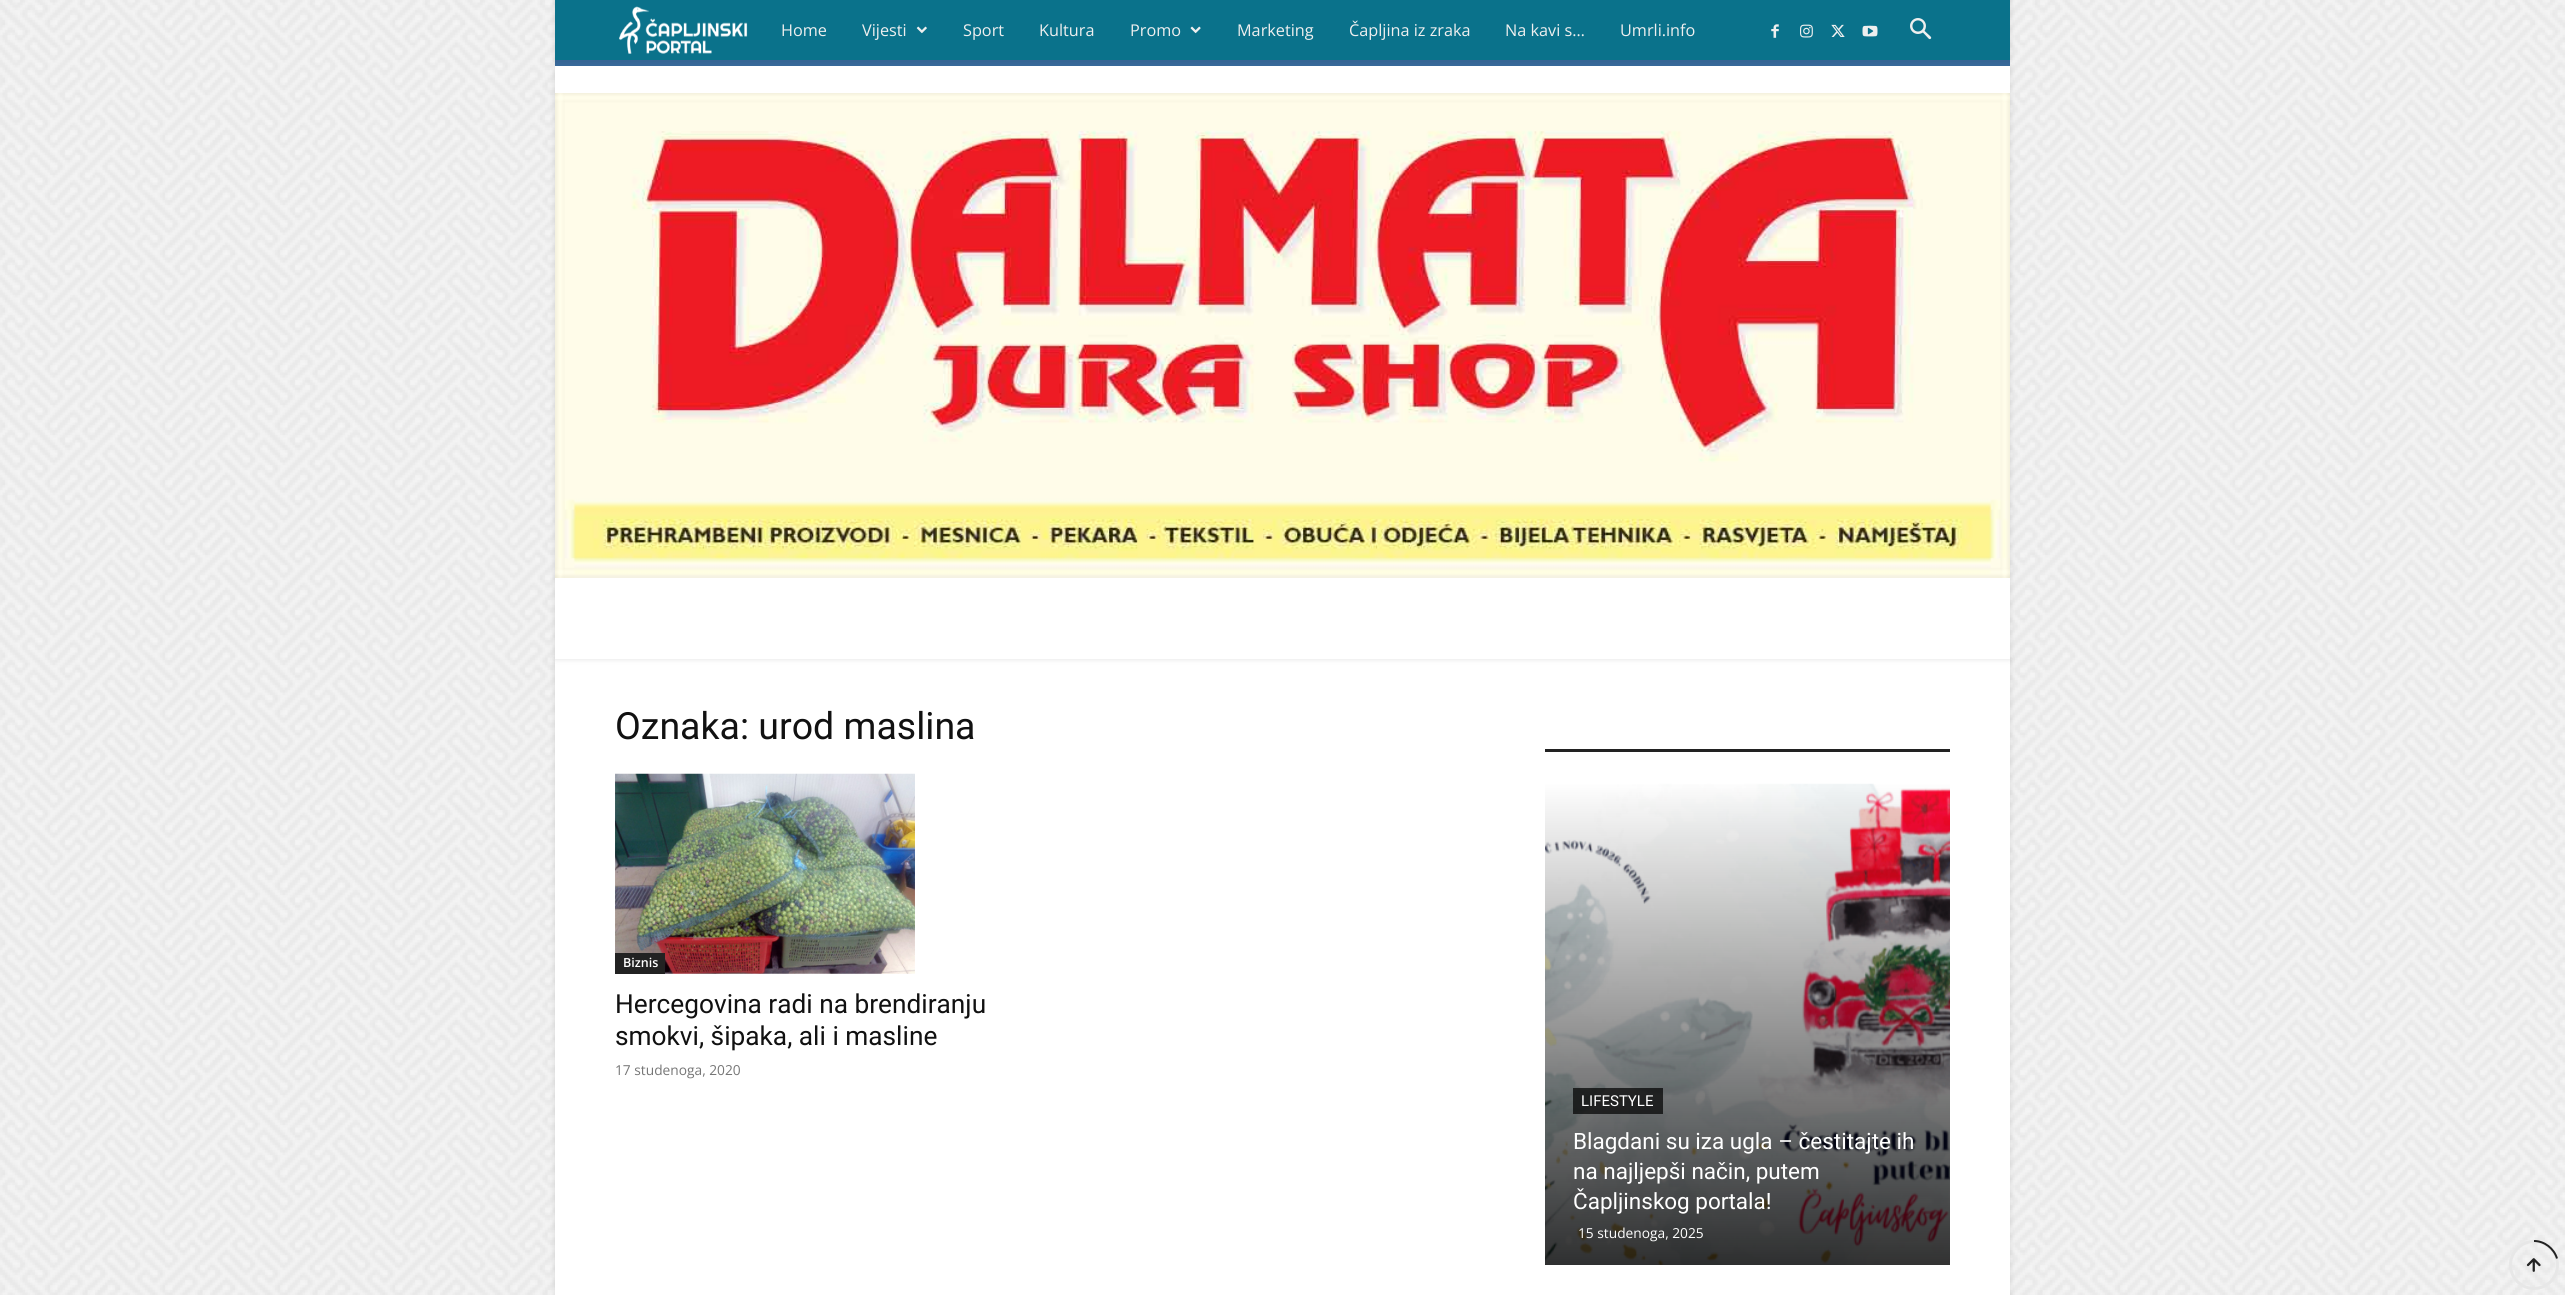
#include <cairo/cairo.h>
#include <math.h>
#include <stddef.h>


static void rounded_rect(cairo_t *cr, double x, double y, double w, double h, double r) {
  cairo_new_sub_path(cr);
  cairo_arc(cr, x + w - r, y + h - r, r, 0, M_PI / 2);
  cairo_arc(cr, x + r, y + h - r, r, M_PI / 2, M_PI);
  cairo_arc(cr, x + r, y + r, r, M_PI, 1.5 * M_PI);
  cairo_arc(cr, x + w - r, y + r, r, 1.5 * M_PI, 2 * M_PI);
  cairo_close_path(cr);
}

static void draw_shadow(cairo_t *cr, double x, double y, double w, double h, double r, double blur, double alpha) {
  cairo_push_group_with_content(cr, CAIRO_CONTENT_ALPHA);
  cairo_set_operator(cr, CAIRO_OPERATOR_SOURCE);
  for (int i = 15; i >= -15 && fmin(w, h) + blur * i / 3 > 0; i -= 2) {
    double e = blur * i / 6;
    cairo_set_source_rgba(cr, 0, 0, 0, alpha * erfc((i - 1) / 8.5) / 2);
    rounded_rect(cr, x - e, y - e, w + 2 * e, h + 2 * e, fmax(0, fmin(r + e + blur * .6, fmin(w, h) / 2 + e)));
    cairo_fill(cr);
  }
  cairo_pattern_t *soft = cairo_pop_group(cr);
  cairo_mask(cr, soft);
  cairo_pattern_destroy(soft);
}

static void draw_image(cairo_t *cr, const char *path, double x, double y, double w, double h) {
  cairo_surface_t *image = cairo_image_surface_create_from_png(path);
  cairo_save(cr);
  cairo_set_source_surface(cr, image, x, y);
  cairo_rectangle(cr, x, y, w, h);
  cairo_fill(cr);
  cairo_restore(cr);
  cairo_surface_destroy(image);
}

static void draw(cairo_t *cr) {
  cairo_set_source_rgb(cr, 1, 1, 1);
  cairo_paint(cr);
  draw_image(cr, "images/1.png", 0, 0, 2565, 1295);
  cairo_set_source_rgb(cr, 0, 0, 0);
  draw_shadow(cr, 555, 659, 1455, 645, 0, 3, 0.12);
  cairo_set_source_rgb(cr, 1, 1, 1);
  cairo_rectangle(cr, 555, 659, 1455, 636);
  cairo_fill(cr);
  cairo_set_source_rgb(cr, 0, 0, 0);
  draw_shadow(cr, 555, 66, 1455, 593, 0, 3, 0.12);
  cairo_set_source_rgb(cr, 1, 1, 1);
  cairo_rectangle(cr, 555, 66, 1455, 593);
  cairo_fill(cr);
  cairo_set_source_rgb(cr, 0, 0, 0);
  draw_shadow(cr, 555, -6, 1455, 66, 0, 3, 0.12);
  cairo_set_source_rgb(cr, 10 / 255.0, 114 / 255.0, 139 / 255.0);
  cairo_rectangle(cr, 555, 0, 1455, 60);
  cairo_fill(cr);
  draw_image(cr, "images/2.png", 619, 6, 129, 48);
  draw_image(cr, "images/3.png", 916, 26, 11, 8);
  draw_image(cr, "images/4.png", 1190, 26, 11, 8);
  draw_image(cr, "images/5.png", 1771, 24, 8, 14);
  draw_image(cr, "images/6.png", 1800, 24, 13, 14);
  draw_image(cr, "images/7.png", 1831, 24, 14, 13);
  draw_image(cr, "images/8.png", 1862, 25, 16, 12);
  draw_image(cr, "images/9.png", 1910, 18, 22, 22);
  cairo_set_source_rgb(cr, 58 / 255.0, 110 / 255.0, 161 / 255.0);
  cairo_rectangle(cr, 555, 60, 1455, 6);
  cairo_fill(cr);
  draw_image(cr, "images/10.png", 555, 60, 1455, 6);
  draw_image(cr, "images/11.png", 555, 93, 1455, 485);
  draw_image(cr, "images/12.png", 615, 773, 300, 201);
  cairo_set_source_rgb(cr, 34 / 255.0, 34 / 255.0, 34 / 255.0);
  cairo_rectangle(cr, 615, 953, 50, 21);
  cairo_fill(cr);
  cairo_rectangle(cr, 1545, 749, 405, 3);
  cairo_fill(cr);
  draw_image(cr, "images/13.png", 1545, 783, 405, 482);
  cairo_set_source_rgba(cr, 0, 0, 0, 0.7);
  cairo_rectangle(cr, 1573, 1088, 90, 26);
  cairo_fill(cr);
  cairo_arc(cr, 2534, 1265, 23.5, 0, 2 * M_PI);
  cairo_set_source_rgb(cr, 231 / 255.0, 231 / 255.0, 231 / 255.0);
  cairo_set_line_width(cr, 3);
  cairo_stroke(cr);
  cairo_new_path(cr);
  cairo_move_to(cr, 2534, 1241);
  cairo_curve_to(cr, 2544.5, 1241, 2554, 1248.5, 2557, 1258.5);
  cairo_set_source_rgb(cr, 34 / 255.0, 34 / 255.0, 34 / 255.0);
  cairo_set_line_width(cr, 2);
  cairo_stroke(cr);
  draw_image(cr, "images/14.png", 2526, 1258, 15, 14);
  cairo_select_font_face(cr, "Open Sans", CAIRO_FONT_SLANT_NORMAL, CAIRO_FONT_WEIGHT_NORMAL);
  cairo_set_font_size(cr, 16.25);
  cairo_set_source_rgb(cr, 239 / 255.0, 239 / 255.0, 239 / 255.0);
  cairo_move_to(cr, 781, 36);
  cairo_show_text(cr, "Home");
  cairo_move_to(cr, 862, 36);
  cairo_show_text(cr, "Vijesti");
  cairo_move_to(cr, 963, 36);
  cairo_show_text(cr, "Sport");
  cairo_move_to(cr, 1039, 36);
  cairo_show_text(cr, "Kultura");
  cairo_move_to(cr, 1130, 36);
  cairo_show_text(cr, "Promo");
  cairo_move_to(cr, 1237, 36);
  cairo_show_text(cr, "Marketing");
  cairo_move_to(cr, 1349, 36);
  cairo_show_text(cr, "Čapljina iz zraka");
  cairo_move_to(cr, 1505, 36);
  cairo_show_text(cr, "Na kavi s…");
  cairo_move_to(cr, 1620, 36);
  cairo_show_text(cr, "Umrli.info");
  cairo_select_font_face(cr, "Roboto", CAIRO_FONT_SLANT_NORMAL, CAIRO_FONT_WEIGHT_NORMAL);
  cairo_set_font_size(cr, 37.5);
  cairo_set_source_rgb(cr, 17 / 255.0, 17 / 255.0, 17 / 255.0);
  cairo_move_to(cr, 615, 739);
  cairo_show_text(cr, "Oznaka: urod maslina");
  cairo_select_font_face(cr, "Open Sans SemiBold", CAIRO_FONT_SLANT_NORMAL, CAIRO_FONT_WEIGHT_NORMAL);
  cairo_set_font_size(cr, 12.5);
  cairo_set_source_rgb(cr, 1, 1, 1);
  cairo_move_to(cr, 623, 967);
  cairo_show_text(cr, "Biznis");
  cairo_select_font_face(cr, "Roboto", CAIRO_FONT_SLANT_NORMAL, CAIRO_FONT_WEIGHT_NORMAL);
  cairo_set_font_size(cr, 26.25);
  cairo_set_source_rgb(cr, 17 / 255.0, 17 / 255.0, 17 / 255.0);
  cairo_move_to(cr, 615, 1013);
  cairo_show_text(cr, "Hercegovina radi na brendiranju");
  cairo_move_to(cr, 615, 1045);
  cairo_show_text(cr, "smokvi, šipaka, ali i masline");
  cairo_select_font_face(cr, "Open Sans", CAIRO_FONT_SLANT_NORMAL, CAIRO_FONT_WEIGHT_NORMAL);
  cairo_set_font_size(cr, 13.75);
  cairo_set_source_rgb(cr, 118 / 255.0, 118 / 255.0, 118 / 255.0);
  cairo_move_to(cr, 615, 1075);
  cairo_show_text(cr, "17 studenoga, 2020");
  cairo_select_font_face(cr, "Roboto", CAIRO_FONT_SLANT_NORMAL, CAIRO_FONT_WEIGHT_NORMAL);
  cairo_set_font_size(cr, 15);
  cairo_set_source_rgb(cr, 1, 1, 1);
  cairo_move_to(cr, 1581, 1106);
  cairo_show_text(cr, "LIFESTYLE");
  cairo_set_font_size(cr, 22.5);
  cairo_move_to(cr, 1573, 1149);
  cairo_show_text(cr, "Blagdani su iza ugla – čestitajte ih");
  cairo_move_to(cr, 1573, 1179);
  cairo_show_text(cr, "na najljepši način, putem");
  cairo_move_to(cr, 1573, 1209);
  cairo_show_text(cr, "Čapljinskog portala!");
  cairo_select_font_face(cr, "Open Sans", CAIRO_FONT_SLANT_NORMAL, CAIRO_FONT_WEIGHT_NORMAL);
  cairo_set_font_size(cr, 13.75);
  cairo_move_to(cr, 1578, 1238);
  cairo_show_text(cr, "15 studenoga, 2025");
}

int main(void) {
  cairo_surface_t *surface = cairo_image_surface_create(CAIRO_FORMAT_RGB24, 2565, 1295);
  cairo_t *cr = cairo_create(surface);
  cairo_font_options_t *options = cairo_font_options_create();
  cairo_font_options_set_hint_metrics(options, CAIRO_HINT_METRICS_OFF);
  cairo_font_options_set_hint_style(options, CAIRO_HINT_STYLE_NONE);
  cairo_set_font_options(cr, options);
  cairo_set_miter_limit(cr, 4);
  draw(cr);
  cairo_surface_write_to_png(surface, "out.png");
  cairo_font_options_destroy(options);
  cairo_destroy(cr);
  cairo_surface_destroy(surface);
  return 0;
}
